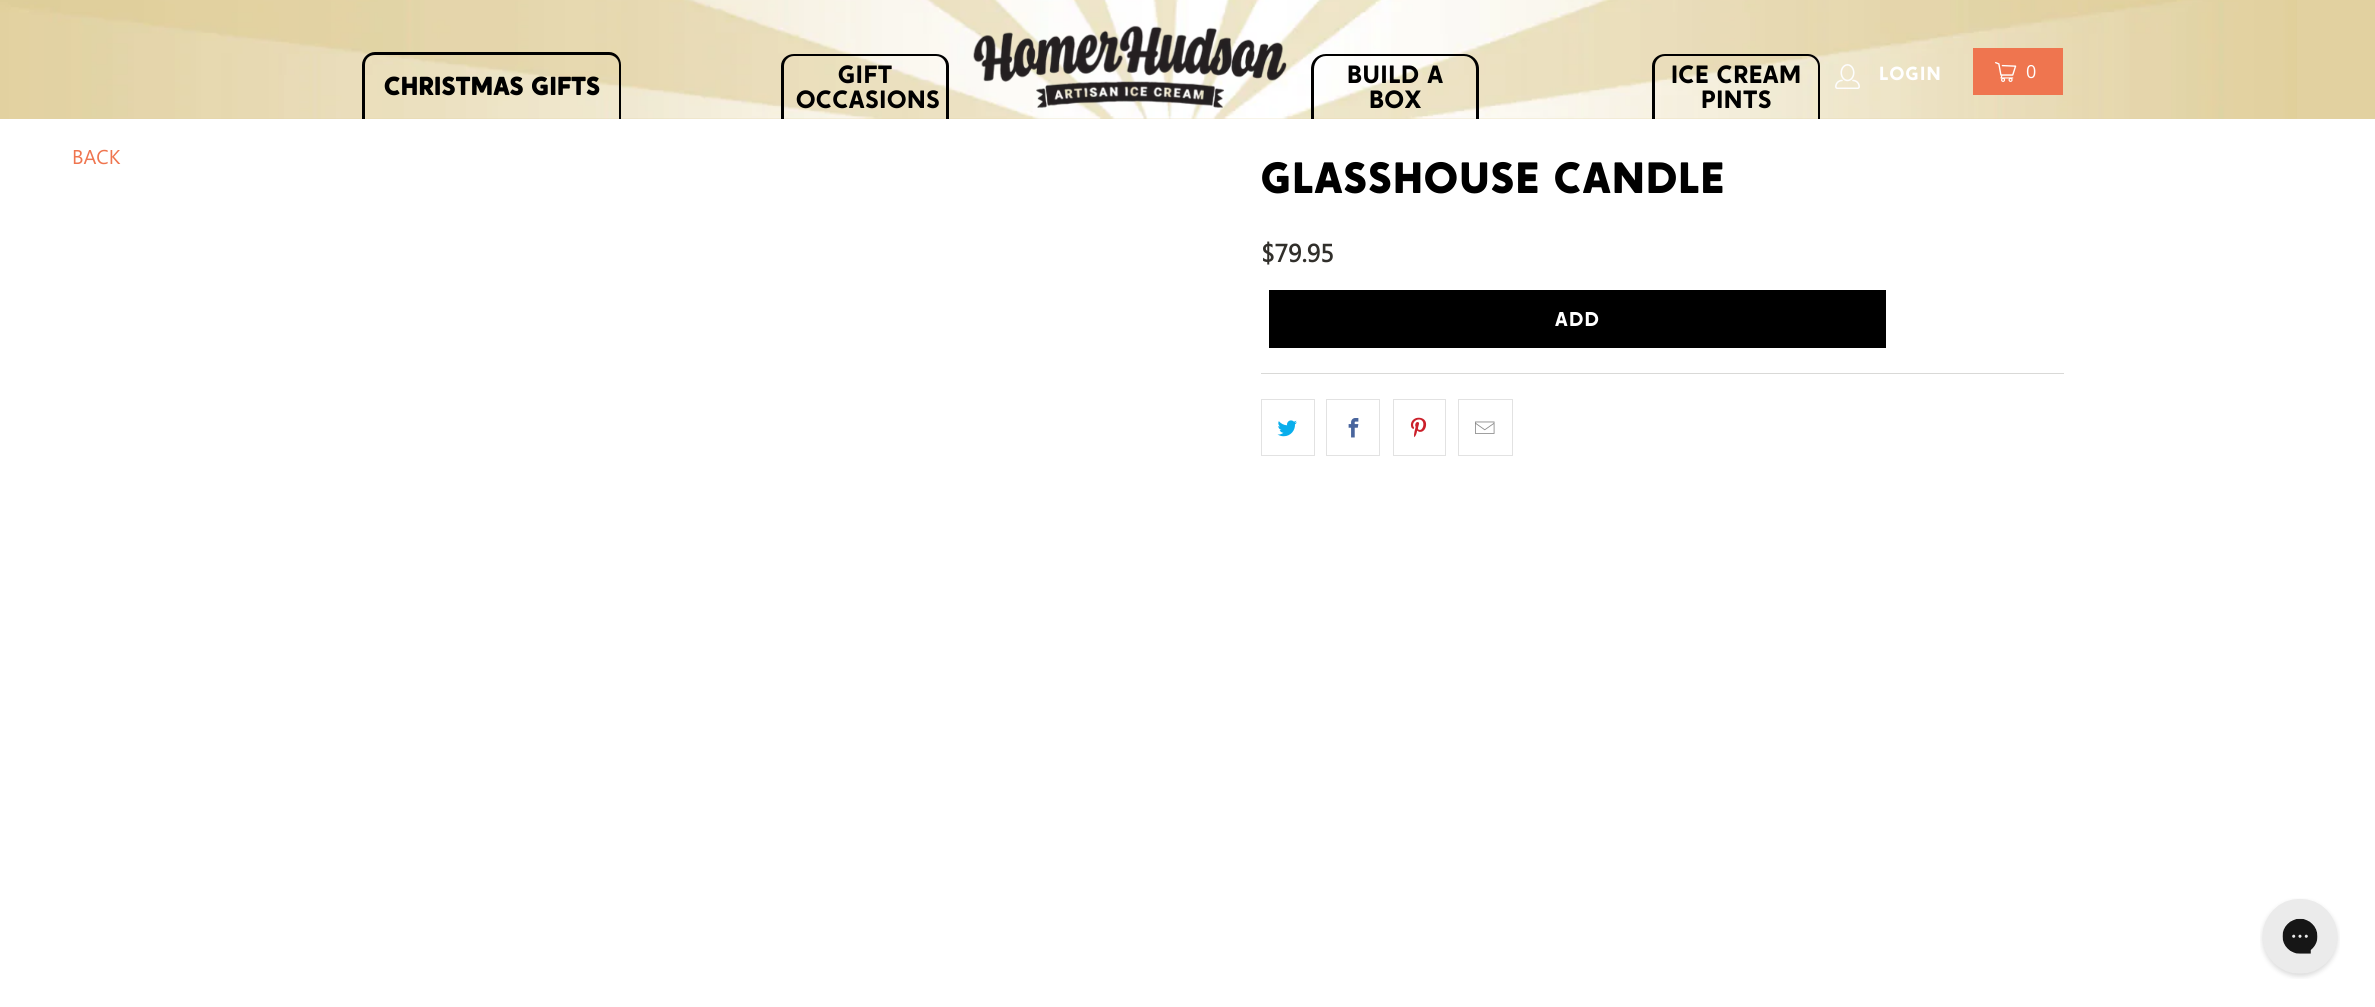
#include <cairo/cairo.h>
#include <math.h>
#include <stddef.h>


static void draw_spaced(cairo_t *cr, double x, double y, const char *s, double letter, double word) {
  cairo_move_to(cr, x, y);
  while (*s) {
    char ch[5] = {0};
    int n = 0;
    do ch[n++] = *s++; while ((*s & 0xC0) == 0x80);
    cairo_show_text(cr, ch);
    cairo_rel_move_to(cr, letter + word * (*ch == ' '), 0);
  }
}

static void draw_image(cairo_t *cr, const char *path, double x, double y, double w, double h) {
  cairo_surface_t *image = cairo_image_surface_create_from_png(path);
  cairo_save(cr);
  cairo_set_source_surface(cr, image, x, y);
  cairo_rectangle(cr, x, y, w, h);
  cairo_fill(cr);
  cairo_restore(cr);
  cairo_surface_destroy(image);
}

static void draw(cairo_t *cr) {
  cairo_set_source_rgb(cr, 1, 1, 1);
  cairo_paint(cr);
  cairo_set_source_rgb(cr, 226 / 255.0, 209 / 255.0, 160 / 255.0);
  cairo_rectangle(cr, 0, 0, 2375, 119);
  cairo_fill(cr);
  draw_image(cr, "images/1.png", 0, 0, 2297, 119);
  cairo_set_source_rgb(cr, 0, 0, 0);
  cairo_set_fill_rule(cr, CAIRO_FILL_RULE_EVEN_ODD);
  cairo_new_path(cr);
  cairo_move_to(cr, 375, 52);
  cairo_line_to(cr, 609, 52);
  cairo_curve_to(cr, 616, 52, 621, 58, 621, 65);
  cairo_line_to(cr, 621, 119);
  cairo_line_to(cr, 362, 119);
  cairo_line_to(cr, 362, 65);
  cairo_curve_to(cr, 362, 58, 368, 52, 375, 52);
  cairo_close_path(cr);
  cairo_move_to(cr, 375, 55);
  cairo_line_to(cr, 609, 55);
  cairo_curve_to(cr, 614, 55, 619, 59, 619, 65);
  cairo_line_to(cr, 619, 119);
  cairo_line_to(cr, 365, 119);
  cairo_line_to(cr, 365, 65);
  cairo_curve_to(cr, 365, 59, 369, 55, 375, 55);
  cairo_close_path(cr);
  cairo_fill(cr);
  cairo_new_path(cr);
  cairo_move_to(cr, 794, 54);
  cairo_line_to(cr, 936, 54);
  cairo_curve_to(cr, 943, 54, 949, 59, 949, 66);
  cairo_line_to(cr, 949, 119);
  cairo_line_to(cr, 781, 119);
  cairo_line_to(cr, 781, 66);
  cairo_curve_to(cr, 781, 59, 787, 54, 794, 54);
  cairo_close_path(cr);
  cairo_move_to(cr, 794, 56);
  cairo_line_to(cr, 936, 56);
  cairo_curve_to(cr, 942, 56, 946, 61, 946, 66);
  cairo_line_to(cr, 946, 119);
  cairo_line_to(cr, 784, 119);
  cairo_line_to(cr, 784, 66);
  cairo_curve_to(cr, 784, 61, 788, 56, 794, 56);
  cairo_close_path(cr);
  cairo_fill(cr);
  draw_image(cr, "images/2.png", 973, 25, 314, 83);
  cairo_new_path(cr);
  cairo_move_to(cr, 1326, 54);
  cairo_line_to(cr, 1464, 54);
  cairo_curve_to(cr, 1472, 54, 1479, 60, 1479, 69);
  cairo_line_to(cr, 1479, 119);
  cairo_line_to(cr, 1311, 119);
  cairo_line_to(cr, 1311, 69);
  cairo_curve_to(cr, 1311, 60, 1318, 54, 1326, 54);
  cairo_close_path(cr);
  cairo_move_to(cr, 1326, 56);
  cairo_line_to(cr, 1464, 56);
  cairo_curve_to(cr, 1471, 56, 1476, 62, 1476, 69);
  cairo_line_to(cr, 1476, 119);
  cairo_line_to(cr, 1314, 119);
  cairo_line_to(cr, 1314, 69);
  cairo_curve_to(cr, 1314, 62, 1319, 56, 1326, 56);
  cairo_close_path(cr);
  cairo_fill(cr);
  cairo_new_path(cr);
  cairo_move_to(cr, 1665, 54);
  cairo_line_to(cr, 1808, 54);
  cairo_curve_to(cr, 1814, 54, 1820, 59, 1820, 66);
  cairo_line_to(cr, 1820, 119);
  cairo_line_to(cr, 1652, 119);
  cairo_line_to(cr, 1652, 66);
  cairo_curve_to(cr, 1652, 59, 1658, 54, 1665, 54);
  cairo_close_path(cr);
  cairo_move_to(cr, 1665, 56);
  cairo_line_to(cr, 1808, 56);
  cairo_curve_to(cr, 1813, 56, 1818, 61, 1818, 66);
  cairo_line_to(cr, 1818, 119);
  cairo_line_to(cr, 1655, 119);
  cairo_line_to(cr, 1655, 66);
  cairo_curve_to(cr, 1655, 61, 1659, 56, 1665, 56);
  cairo_close_path(cr);
  cairo_fill(cr);
  draw_image(cr, "images/3.png", 1835, 64, 25, 25);
  cairo_set_source_rgb(cr, 239 / 255.0, 117 / 255.0, 79 / 255.0);
  cairo_rectangle(cr, 1973, 48, 90, 47);
  cairo_fill(cr);
  draw_image(cr, "images/4.png", 1995, 62, 22, 20);
  cairo_set_source_rgb(cr, 0, 0, 0);
  cairo_rectangle(cr, 1269, 290, 617, 58);
  cairo_fill(cr);
  cairo_set_source_rgb(cr, 217 / 255.0, 217 / 255.0, 215 / 255.0);
  cairo_rectangle(cr, 1261, 373, 803, 1);
  cairo_fill(cr);
  cairo_rectangle(cr, 1261.5, 399.5, 53, 56);
  cairo_set_source_rgb(cr, 226 / 255.0, 226 / 255.0, 226 / 255.0);
  cairo_set_line_width(cr, 1);
  cairo_stroke(cr);
  draw_image(cr, "images/5.png", 1277, 420, 20, 17);
  cairo_rectangle(cr, 1326.5, 399.5, 53, 56);
  cairo_stroke(cr);
  draw_image(cr, "images/6.png", 1348, 418, 11, 20);
  cairo_rectangle(cr, 1393.5, 399.5, 52, 56);
  cairo_stroke(cr);
  draw_image(cr, "images/7.png", 1410, 417, 17, 21);
  cairo_rectangle(cr, 1458.5, 399.5, 54, 56);
  cairo_stroke(cr);
  draw_image(cr, "images/8.png", 1475, 421, 20, 13);
  draw_image(cr, "images/9.png", 2260, 898, 80, 81);
  cairo_select_font_face(cr, "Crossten", CAIRO_FONT_SLANT_NORMAL, CAIRO_FONT_WEIGHT_BOLD);
  cairo_set_font_size(cr, 25);
  cairo_set_source_rgb(cr, 0, 0, 0);
  draw_spaced(cr, 384, 95, "CHRISTMAS GIFTS", 0.6, 0);
  cairo_select_font_face(cr, "Crossten", CAIRO_FONT_SLANT_NORMAL, CAIRO_FONT_WEIGHT_NORMAL);
  draw_spaced(cr, 838, 83, "GIFT", 0.6, 0);
  draw_spaced(cr, 796, 108, "OCCASIONS", 0.6, 0);
  draw_spaced(cr, 1347, 83, "BUILD A", 0.6, 0);
  draw_spaced(cr, 1369, 108, "BOX", 0.6, 0);
  draw_spaced(cr, 1671, 83, "ICE CREAM", 0.6, 0);
  draw_spaced(cr, 1701, 108, "PINTS", 0.6, 0);
  cairo_set_font_size(cr, 19);
  cairo_set_source_rgb(cr, 1, 1, 1);
  draw_spaced(cr, 1879, 80, "LOGIN", 1.25, 0);
  cairo_select_font_face(cr, "Open Sans", CAIRO_FONT_SLANT_NORMAL, CAIRO_FONT_WEIGHT_NORMAL);
  cairo_set_font_size(cr, 18);
  draw_spaced(cr, 2026, 78, "0", 1.25, 0);
  cairo_select_font_face(cr, "Segoe UI", CAIRO_FONT_SLANT_NORMAL, CAIRO_FONT_WEIGHT_NORMAL);
  cairo_set_font_size(cr, 20);
  cairo_set_source_rgb(cr, 239 / 255.0, 117 / 255.0, 79 / 255.0);
  cairo_move_to(cr, 72, 164);
  cairo_show_text(cr, "BACK");
  cairo_select_font_face(cr, "Crossten ExtraBold", CAIRO_FONT_SLANT_NORMAL, CAIRO_FONT_WEIGHT_NORMAL);
  cairo_set_font_size(cr, 43.75);
  cairo_set_source_rgb(cr, 0, 0, 0);
  draw_spaced(cr, 1261, 193, "GLASSHOUSE CANDLE", 1.25, 0);
  cairo_select_font_face(cr, "Segoe UI", CAIRO_FONT_SLANT_NORMAL, CAIRO_FONT_WEIGHT_BOLD);
  cairo_set_font_size(cr, 25);
  cairo_set_source_rgb(cr, 49 / 255.0, 47 / 255.0, 43 / 255.0);
  cairo_move_to(cr, 1261, 262);
  cairo_show_text(cr, "$79.95");
  cairo_select_font_face(cr, "Crossten", CAIRO_FONT_SLANT_NORMAL, CAIRO_FONT_WEIGHT_NORMAL);
  cairo_set_font_size(cr, 20);
  cairo_set_source_rgb(cr, 1, 1, 1);
  draw_spaced(cr, 1555, 326, "ADD", 1.25, 0);
}

int main(void) {
  cairo_surface_t *surface = cairo_image_surface_create(CAIRO_FORMAT_RGB24, 2375, 1007);
  cairo_t *cr = cairo_create(surface);
  cairo_font_options_t *options = cairo_font_options_create();
  cairo_font_options_set_hint_metrics(options, CAIRO_HINT_METRICS_OFF);
  cairo_font_options_set_hint_style(options, CAIRO_HINT_STYLE_NONE);
  cairo_set_font_options(cr, options);
  cairo_set_miter_limit(cr, 4);
  draw(cr);
  cairo_surface_write_to_png(surface, "out.png");
  cairo_font_options_destroy(options);
  cairo_destroy(cr);
  cairo_surface_destroy(surface);
  return 0;
}
